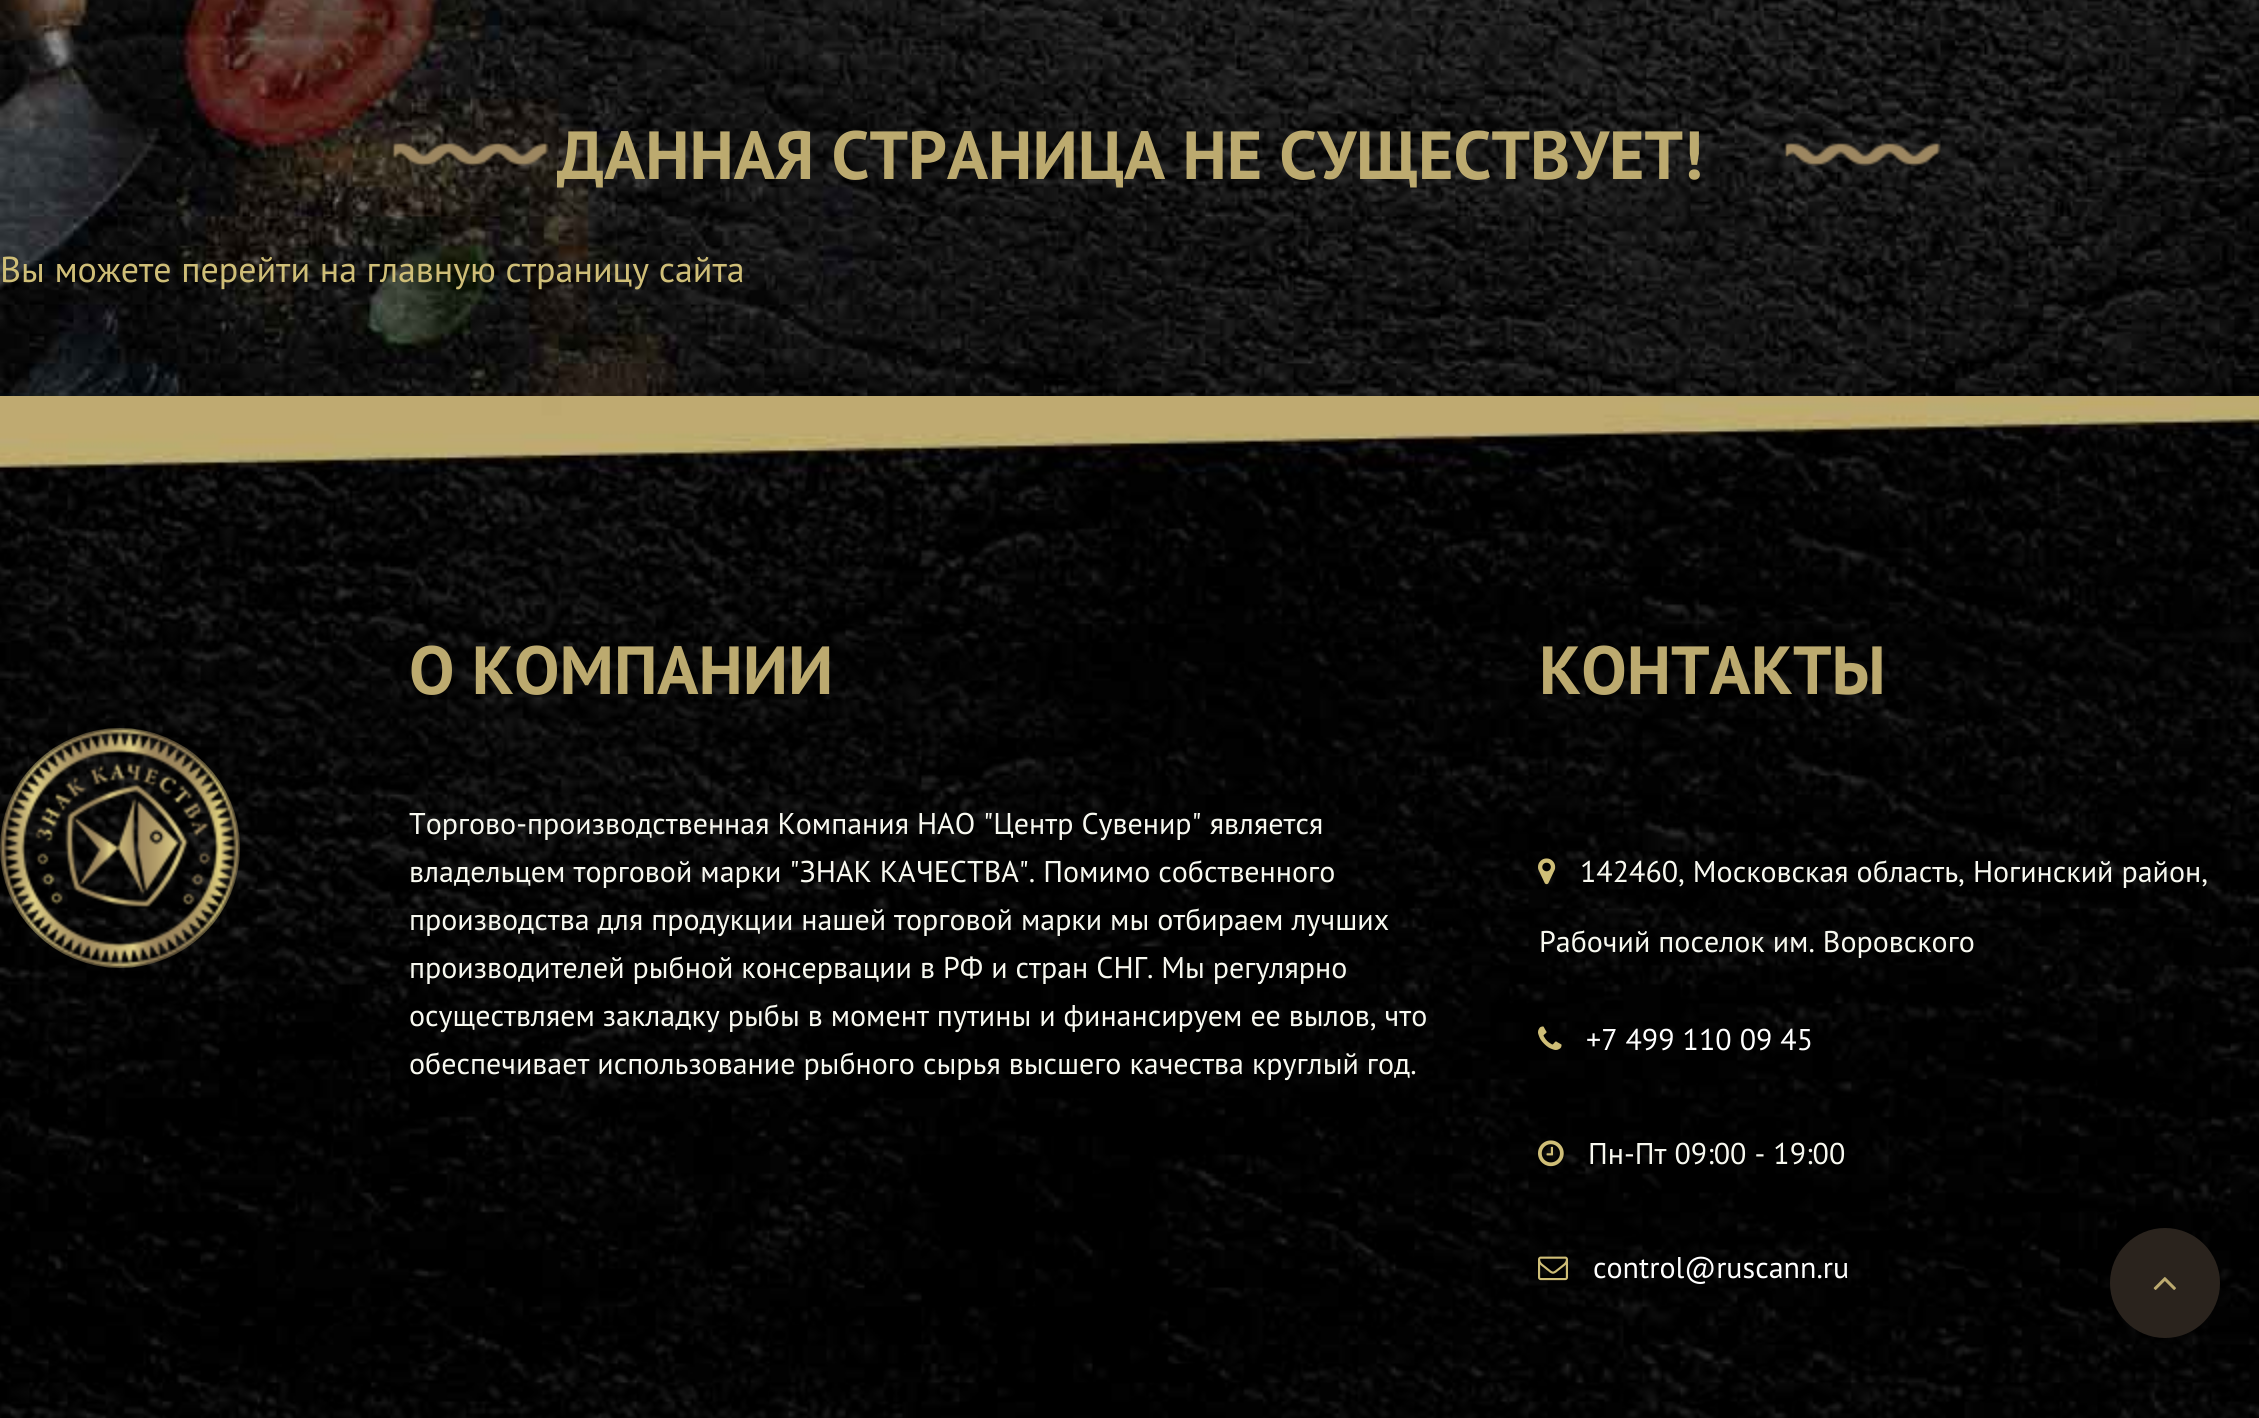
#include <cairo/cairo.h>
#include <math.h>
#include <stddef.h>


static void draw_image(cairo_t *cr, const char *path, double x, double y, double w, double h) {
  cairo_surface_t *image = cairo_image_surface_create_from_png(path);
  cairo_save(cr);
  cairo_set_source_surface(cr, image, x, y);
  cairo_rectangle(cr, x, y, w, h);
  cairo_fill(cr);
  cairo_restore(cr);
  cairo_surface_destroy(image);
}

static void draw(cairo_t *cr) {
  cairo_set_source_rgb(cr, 1, 1, 1);
  cairo_paint(cr);
  draw_image(cr, "images/1.png", 0, 0, 2259, 396);
  draw_image(cr, "images/2.png", 392, 143, 157, 23);
  draw_image(cr, "images/3.png", 1784, 143, 157, 23);
  draw_image(cr, "images/4.png", 0, 396, 2259, 1022);
  draw_image(cr, "images/5.png", 0, 728, 240, 240);
  draw_image(cr, "images/6.png", 1538, 858, 18, 27);
  draw_image(cr, "images/7.png", 1538, 1026, 24, 24);
  draw_image(cr, "images/8.png", 1538, 1140, 26, 27);
  draw_image(cr, "images/9.png", 1538, 1256, 30, 25);
  cairo_set_source_rgb(cr, 42 / 255.0, 35 / 255.0, 29 / 255.0);
  cairo_arc(cr, 2165, 1283, 55, 0, 2 * M_PI);
  cairo_fill(cr);
  draw_image(cr, "images/10.png", 2153, 1277, 23, 13);
  cairo_select_font_face(cr, "PT Sans", CAIRO_FONT_SLANT_NORMAL, CAIRO_FONT_WEIGHT_BOLD);
  cairo_set_font_size(cr, 68);
  cairo_set_source_rgb(cr, 188 / 255.0, 170 / 255.0, 111 / 255.0);
  cairo_move_to(cr, 557, 179);
  cairo_show_text(cr, "ДАННАЯ СТРАНИЦА НЕ СУЩЕСТВУЕТ!");
  cairo_select_font_face(cr, "PT Sans", CAIRO_FONT_SLANT_NORMAL, CAIRO_FONT_WEIGHT_NORMAL);
  cairo_set_font_size(cr, 36);
  cairo_set_source_rgb(cr, 207 / 255.0, 190 / 255.0, 119 / 255.0);
  cairo_move_to(cr, 0, 282);
  cairo_show_text(cr, "Вы можете перейти на главную страницу сайта");
  cairo_select_font_face(cr, "PT Sans", CAIRO_FONT_SLANT_NORMAL, CAIRO_FONT_WEIGHT_BOLD);
  cairo_set_font_size(cr, 68);
  cairo_set_source_rgb(cr, 188 / 255.0, 170 / 255.0, 111 / 255.0);
  cairo_move_to(cr, 409, 694);
  cairo_show_text(cr, "О КОМПАНИИ");
  cairo_select_font_face(cr, "PT Sans", CAIRO_FONT_SLANT_NORMAL, CAIRO_FONT_WEIGHT_NORMAL);
  cairo_set_font_size(cr, 30);
  cairo_set_source_rgb(cr, 248 / 255.0, 249 / 255.0, 240 / 255.0);
  cairo_move_to(cr, 409, 834);
  cairo_show_text(cr, "Торгово-производственная Компания НАО \"Центр Сувенир\" является");
  cairo_move_to(cr, 409, 882);
  cairo_show_text(cr, "владельцем торговой марки \"ЗНАК КАЧЕСТВА\". Помимо собственного");
  cairo_move_to(cr, 409, 930);
  cairo_show_text(cr, "производства для продукции нашей торговой марки мы отбираем лучших");
  cairo_move_to(cr, 409, 978);
  cairo_show_text(cr, "производителей рыбной консервации в РФ и стран СНГ. Мы регулярно");
  cairo_move_to(cr, 409, 1026);
  cairo_show_text(cr, "осуществляем закладку рыбы в момент путины и финансируем ее вылов, что");
  cairo_move_to(cr, 409, 1074);
  cairo_show_text(cr, "обеспечивает использование рыбного сырья высшего качества круглый год.");
  cairo_select_font_face(cr, "PT Sans", CAIRO_FONT_SLANT_NORMAL, CAIRO_FONT_WEIGHT_BOLD);
  cairo_set_font_size(cr, 68);
  cairo_set_source_rgb(cr, 188 / 255.0, 170 / 255.0, 111 / 255.0);
  cairo_move_to(cr, 1539, 694);
  cairo_show_text(cr, "КОНТАКТЫ");
  cairo_select_font_face(cr, "PT Sans", CAIRO_FONT_SLANT_NORMAL, CAIRO_FONT_WEIGHT_NORMAL);
  cairo_set_font_size(cr, 30);
  cairo_set_source_rgb(cr, 248 / 255.0, 249 / 255.0, 240 / 255.0);
  cairo_move_to(cr, 1580, 882);
  cairo_show_text(cr, "142460, Московская область, Ногинский район,");
  cairo_move_to(cr, 1539, 952);
  cairo_show_text(cr, "Рабочий поселок им. Воровского");
  cairo_set_source_rgb(cr, 1, 1, 1);
  cairo_move_to(cr, 1586, 1050);
  cairo_show_text(cr, "+7 499 110 09 45");
  cairo_set_source_rgb(cr, 248 / 255.0, 249 / 255.0, 240 / 255.0);
  cairo_move_to(cr, 1588, 1164);
  cairo_show_text(cr, "Пн-Пт 09:00 - 19:00");
  cairo_set_source_rgb(cr, 1, 1, 1);
  cairo_move_to(cr, 1593, 1278);
  cairo_show_text(cr, "control@ruscann.ru");
}

int main(void) {
  cairo_surface_t *surface = cairo_image_surface_create(CAIRO_FORMAT_RGB24, 2259, 1418);
  cairo_t *cr = cairo_create(surface);
  cairo_font_options_t *options = cairo_font_options_create();
  cairo_font_options_set_hint_metrics(options, CAIRO_HINT_METRICS_OFF);
  cairo_font_options_set_hint_style(options, CAIRO_HINT_STYLE_NONE);
  cairo_set_font_options(cr, options);
  cairo_set_miter_limit(cr, 4);
  draw(cr);
  cairo_surface_write_to_png(surface, "out.png");
  cairo_font_options_destroy(options);
  cairo_destroy(cr);
  cairo_surface_destroy(surface);
  return 0;
}
